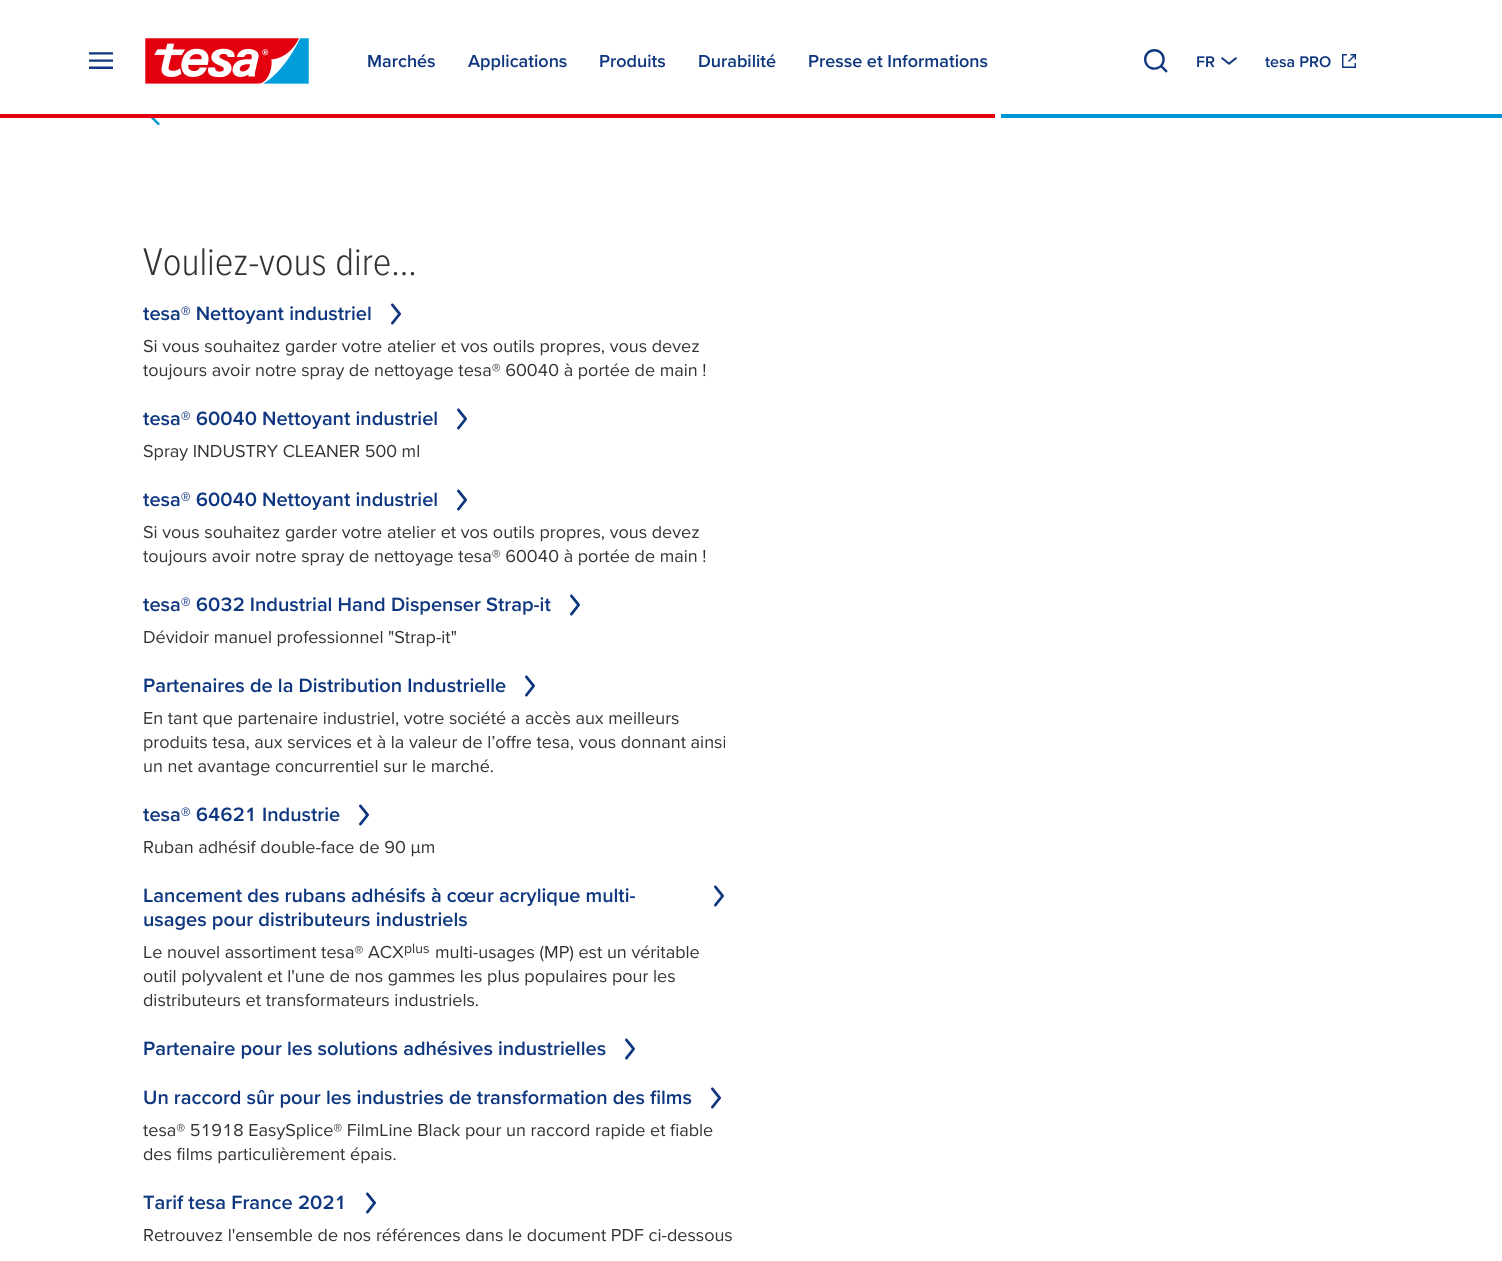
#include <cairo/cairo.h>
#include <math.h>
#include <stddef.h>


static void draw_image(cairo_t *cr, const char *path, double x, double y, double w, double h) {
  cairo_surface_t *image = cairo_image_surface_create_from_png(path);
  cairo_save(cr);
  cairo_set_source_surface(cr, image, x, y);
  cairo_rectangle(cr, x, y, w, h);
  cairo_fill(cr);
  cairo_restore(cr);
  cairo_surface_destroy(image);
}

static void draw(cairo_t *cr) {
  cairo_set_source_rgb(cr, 1, 1, 1);
  cairo_paint(cr);
  draw_image(cr, "images/1.png", 89, 52, 24, 17);
  draw_image(cr, "images/2.png", 145, 38, 164, 46);
  draw_image(cr, "images/3.png", 1144, 49, 24, 24);
  draw_image(cr, "images/4.png", 1221, 57, 16, 8);
  draw_image(cr, "images/5.png", 1342, 54, 14, 14);
  cairo_set_source_rgb(cr, 0, 151 / 255.0, 212 / 255.0);
  cairo_rectangle(cr, 1001, 114, 501, 4);
  cairo_fill(cr);
  cairo_set_source_rgb(cr, 227 / 255.0, 0, 15 / 255.0);
  cairo_rectangle(cr, 0, 114, 1001, 4);
  cairo_fill(cr);
  cairo_set_source_rgb(cr, 1, 1, 1);
  cairo_rectangle(cr, 995, 114, 6, 4);
  cairo_fill(cr);
  draw_image(cr, "images/6.png", 151, 118, 9, 8);
  draw_image(cr, "images/7.png", 391, 303, 10, 22);
  draw_image(cr, "images/7.png", 457, 408, 10, 22);
  draw_image(cr, "images/7.png", 457, 489, 10, 22);
  draw_image(cr, "images/7.png", 570, 594, 10, 22);
  draw_image(cr, "images/7.png", 525, 675, 10, 22);
  draw_image(cr, "images/7.png", 359, 804, 10, 22);
  draw_image(cr, "images/8.png", 714, 885, 10, 22);
  draw_image(cr, "images/7.png", 625, 1038, 10, 22);
  draw_image(cr, "images/7.png", 711, 1087, 10, 22);
  draw_image(cr, "images/7.png", 366, 1192, 10, 22);
  cairo_select_font_face(cr, "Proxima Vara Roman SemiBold", CAIRO_FONT_SLANT_NORMAL, CAIRO_FONT_WEIGHT_NORMAL);
  cairo_set_font_size(cr, 18);
  cairo_set_source_rgb(cr, 15 / 255.0, 55 / 255.0, 127 / 255.0);
  cairo_move_to(cr, 367, 67);
  cairo_show_text(cr, "Marchés");
  cairo_move_to(cr, 468, 67);
  cairo_show_text(cr, "Applications");
  cairo_move_to(cr, 599, 67);
  cairo_show_text(cr, "Produits");
  cairo_move_to(cr, 698, 67);
  cairo_show_text(cr, "Durabilité");
  cairo_move_to(cr, 808, 67);
  cairo_show_text(cr, "Presse et Informations");
  cairo_set_font_size(cr, 16);
  cairo_move_to(cr, 1196, 67);
  cairo_show_text(cr, "FR");
  cairo_move_to(cr, 1265, 67);
  cairo_show_text(cr, "tesa PRO");
  cairo_select_font_face(cr, "Proxima Vara Roman Light", CAIRO_FONT_SLANT_NORMAL, CAIRO_FONT_WEIGHT_NORMAL);
  cairo_set_font_size(cr, 40);
  cairo_set_source_rgb(cr, 51 / 255.0, 51 / 255.0, 51 / 255.0);
  cairo_move_to(cr, 143, 275);
  cairo_show_text(cr, "Vouliez-vous dire...");
  cairo_select_font_face(cr, "Proxima Vara Roman SemiBold", CAIRO_FONT_SLANT_NORMAL, CAIRO_FONT_WEIGHT_NORMAL);
  cairo_set_font_size(cr, 20);
  cairo_set_source_rgb(cr, 15 / 255.0, 55 / 255.0, 127 / 255.0);
  cairo_move_to(cr, 143, 320);
  cairo_show_text(cr, "tesa® Nettoyant industriel");
  cairo_select_font_face(cr, "Proxima Vara Roman", CAIRO_FONT_SLANT_NORMAL, CAIRO_FONT_WEIGHT_NORMAL);
  cairo_set_font_size(cr, 18);
  cairo_set_source_rgb(cr, 51 / 255.0, 51 / 255.0, 51 / 255.0);
  cairo_move_to(cr, 143, 352);
  cairo_show_text(cr, "Si vous souhaitez garder votre atelier et vos outils propres, vous devez");
  cairo_move_to(cr, 143, 376);
  cairo_show_text(cr, "toujours avoir notre spray de nettoyage tesa® 60040 à portée de main !");
  cairo_select_font_face(cr, "Proxima Vara Roman SemiBold", CAIRO_FONT_SLANT_NORMAL, CAIRO_FONT_WEIGHT_NORMAL);
  cairo_set_font_size(cr, 20);
  cairo_set_source_rgb(cr, 15 / 255.0, 55 / 255.0, 127 / 255.0);
  cairo_move_to(cr, 143, 425);
  cairo_show_text(cr, "tesa® 60040 Nettoyant industriel");
  cairo_select_font_face(cr, "Proxima Vara Roman", CAIRO_FONT_SLANT_NORMAL, CAIRO_FONT_WEIGHT_NORMAL);
  cairo_set_font_size(cr, 18);
  cairo_set_source_rgb(cr, 51 / 255.0, 51 / 255.0, 51 / 255.0);
  cairo_move_to(cr, 143, 457);
  cairo_show_text(cr, "Spray INDUSTRY CLEANER 500 ml");
  cairo_select_font_face(cr, "Proxima Vara Roman SemiBold", CAIRO_FONT_SLANT_NORMAL, CAIRO_FONT_WEIGHT_NORMAL);
  cairo_set_font_size(cr, 20);
  cairo_set_source_rgb(cr, 15 / 255.0, 55 / 255.0, 127 / 255.0);
  cairo_move_to(cr, 143, 506);
  cairo_show_text(cr, "tesa® 60040 Nettoyant industriel");
  cairo_select_font_face(cr, "Proxima Vara Roman", CAIRO_FONT_SLANT_NORMAL, CAIRO_FONT_WEIGHT_NORMAL);
  cairo_set_font_size(cr, 18);
  cairo_set_source_rgb(cr, 51 / 255.0, 51 / 255.0, 51 / 255.0);
  cairo_move_to(cr, 143, 538);
  cairo_show_text(cr, "Si vous souhaitez garder votre atelier et vos outils propres, vous devez");
  cairo_move_to(cr, 143, 562);
  cairo_show_text(cr, "toujours avoir notre spray de nettoyage tesa® 60040 à portée de main !");
  cairo_select_font_face(cr, "Proxima Vara Roman SemiBold", CAIRO_FONT_SLANT_NORMAL, CAIRO_FONT_WEIGHT_NORMAL);
  cairo_set_font_size(cr, 20);
  cairo_set_source_rgb(cr, 15 / 255.0, 55 / 255.0, 127 / 255.0);
  cairo_move_to(cr, 143, 611);
  cairo_show_text(cr, "tesa® 6032 Industrial Hand Dispenser Strap-it");
  cairo_select_font_face(cr, "Proxima Vara Roman", CAIRO_FONT_SLANT_NORMAL, CAIRO_FONT_WEIGHT_NORMAL);
  cairo_set_font_size(cr, 18);
  cairo_set_source_rgb(cr, 51 / 255.0, 51 / 255.0, 51 / 255.0);
  cairo_move_to(cr, 143, 643);
  cairo_show_text(cr, "Dévidoir manuel professionnel \"Strap-it\"");
  cairo_select_font_face(cr, "Proxima Vara Roman SemiBold", CAIRO_FONT_SLANT_NORMAL, CAIRO_FONT_WEIGHT_NORMAL);
  cairo_set_font_size(cr, 20);
  cairo_set_source_rgb(cr, 15 / 255.0, 55 / 255.0, 127 / 255.0);
  cairo_move_to(cr, 143, 692);
  cairo_show_text(cr, "Partenaires de la Distribution Industrielle");
  cairo_select_font_face(cr, "Proxima Vara Roman", CAIRO_FONT_SLANT_NORMAL, CAIRO_FONT_WEIGHT_NORMAL);
  cairo_set_font_size(cr, 18);
  cairo_set_source_rgb(cr, 51 / 255.0, 51 / 255.0, 51 / 255.0);
  cairo_move_to(cr, 143, 724);
  cairo_show_text(cr, "En tant que partenaire industriel, votre société a accès aux meilleurs");
  cairo_move_to(cr, 143, 748);
  cairo_show_text(cr, "produits tesa, aux services et à la valeur de l’offre tesa, vous donnant ainsi");
  cairo_move_to(cr, 143, 772);
  cairo_show_text(cr, "un net avantage concurrentiel sur le marché.");
  cairo_select_font_face(cr, "Proxima Vara Roman SemiBold", CAIRO_FONT_SLANT_NORMAL, CAIRO_FONT_WEIGHT_NORMAL);
  cairo_set_font_size(cr, 20);
  cairo_set_source_rgb(cr, 15 / 255.0, 55 / 255.0, 127 / 255.0);
  cairo_move_to(cr, 143, 821);
  cairo_show_text(cr, "tesa® 64621 Industrie");
  cairo_select_font_face(cr, "Proxima Vara Roman", CAIRO_FONT_SLANT_NORMAL, CAIRO_FONT_WEIGHT_NORMAL);
  cairo_set_font_size(cr, 18);
  cairo_set_source_rgb(cr, 51 / 255.0, 51 / 255.0, 51 / 255.0);
  cairo_move_to(cr, 143, 853);
  cairo_show_text(cr, "Ruban adhésif double-face de 90 µm");
  cairo_select_font_face(cr, "Proxima Vara Roman SemiBold", CAIRO_FONT_SLANT_NORMAL, CAIRO_FONT_WEIGHT_NORMAL);
  cairo_set_font_size(cr, 20);
  cairo_set_source_rgb(cr, 15 / 255.0, 55 / 255.0, 127 / 255.0);
  cairo_move_to(cr, 143, 902);
  cairo_show_text(cr, "Lancement des rubans adhésifs à cœur acrylique multi-");
  cairo_move_to(cr, 143, 926);
  cairo_show_text(cr, "usages pour distributeurs industriels");
  cairo_select_font_face(cr, "Proxima Vara Roman", CAIRO_FONT_SLANT_NORMAL, CAIRO_FONT_WEIGHT_NORMAL);
  cairo_set_font_size(cr, 18);
  cairo_set_source_rgb(cr, 51 / 255.0, 51 / 255.0, 51 / 255.0);
  cairo_move_to(cr, 143, 958);
  cairo_show_text(cr, "Le nouvel assortiment tesa® ACX");
  cairo_set_font_size(cr, 14);
  cairo_move_to(cr, 404, 953);
  cairo_show_text(cr, "plus");
  cairo_set_font_size(cr, 18);
  cairo_move_to(cr, 435, 958);
  cairo_show_text(cr, "multi-usages (MP) est un véritable");
  cairo_move_to(cr, 143, 982);
  cairo_show_text(cr, "outil polyvalent et l'une de nos gammes les plus populaires pour les");
  cairo_move_to(cr, 143, 1006);
  cairo_show_text(cr, "distributeurs et transformateurs industriels.");
  cairo_select_font_face(cr, "Proxima Vara Roman SemiBold", CAIRO_FONT_SLANT_NORMAL, CAIRO_FONT_WEIGHT_NORMAL);
  cairo_set_font_size(cr, 20);
  cairo_set_source_rgb(cr, 15 / 255.0, 55 / 255.0, 127 / 255.0);
  cairo_move_to(cr, 143, 1055);
  cairo_show_text(cr, "Partenaire pour les solutions adhésives industrielles");
  cairo_move_to(cr, 143, 1104);
  cairo_show_text(cr, "Un raccord sûr pour les industries de transformation des films");
  cairo_select_font_face(cr, "Proxima Vara Roman", CAIRO_FONT_SLANT_NORMAL, CAIRO_FONT_WEIGHT_NORMAL);
  cairo_set_font_size(cr, 18);
  cairo_set_source_rgb(cr, 51 / 255.0, 51 / 255.0, 51 / 255.0);
  cairo_move_to(cr, 143, 1136);
  cairo_show_text(cr, "tesa® 51918 EasySplice® FilmLine Black pour un raccord rapide et fiable");
  cairo_move_to(cr, 143, 1160);
  cairo_show_text(cr, "des films particulièrement épais.");
  cairo_select_font_face(cr, "Proxima Vara Roman SemiBold", CAIRO_FONT_SLANT_NORMAL, CAIRO_FONT_WEIGHT_NORMAL);
  cairo_set_font_size(cr, 20);
  cairo_set_source_rgb(cr, 15 / 255.0, 55 / 255.0, 127 / 255.0);
  cairo_move_to(cr, 143, 1209);
  cairo_show_text(cr, "Tarif tesa France 2021");
  cairo_select_font_face(cr, "Proxima Vara Roman", CAIRO_FONT_SLANT_NORMAL, CAIRO_FONT_WEIGHT_NORMAL);
  cairo_set_font_size(cr, 18);
  cairo_set_source_rgb(cr, 51 / 255.0, 51 / 255.0, 51 / 255.0);
  cairo_move_to(cr, 143, 1241);
  cairo_show_text(cr, "Retrouvez l'ensemble de nos références dans le document PDF ci-dessous");
}

int main(void) {
  cairo_surface_t *surface = cairo_image_surface_create(CAIRO_FORMAT_RGB24, 1502, 1261);
  cairo_t *cr = cairo_create(surface);
  cairo_font_options_t *options = cairo_font_options_create();
  cairo_font_options_set_hint_metrics(options, CAIRO_HINT_METRICS_OFF);
  cairo_font_options_set_hint_style(options, CAIRO_HINT_STYLE_NONE);
  cairo_set_font_options(cr, options);
  cairo_set_miter_limit(cr, 4);
  draw(cr);
  cairo_surface_write_to_png(surface, "out.png");
  cairo_font_options_destroy(options);
  cairo_destroy(cr);
  cairo_surface_destroy(surface);
  return 0;
}
